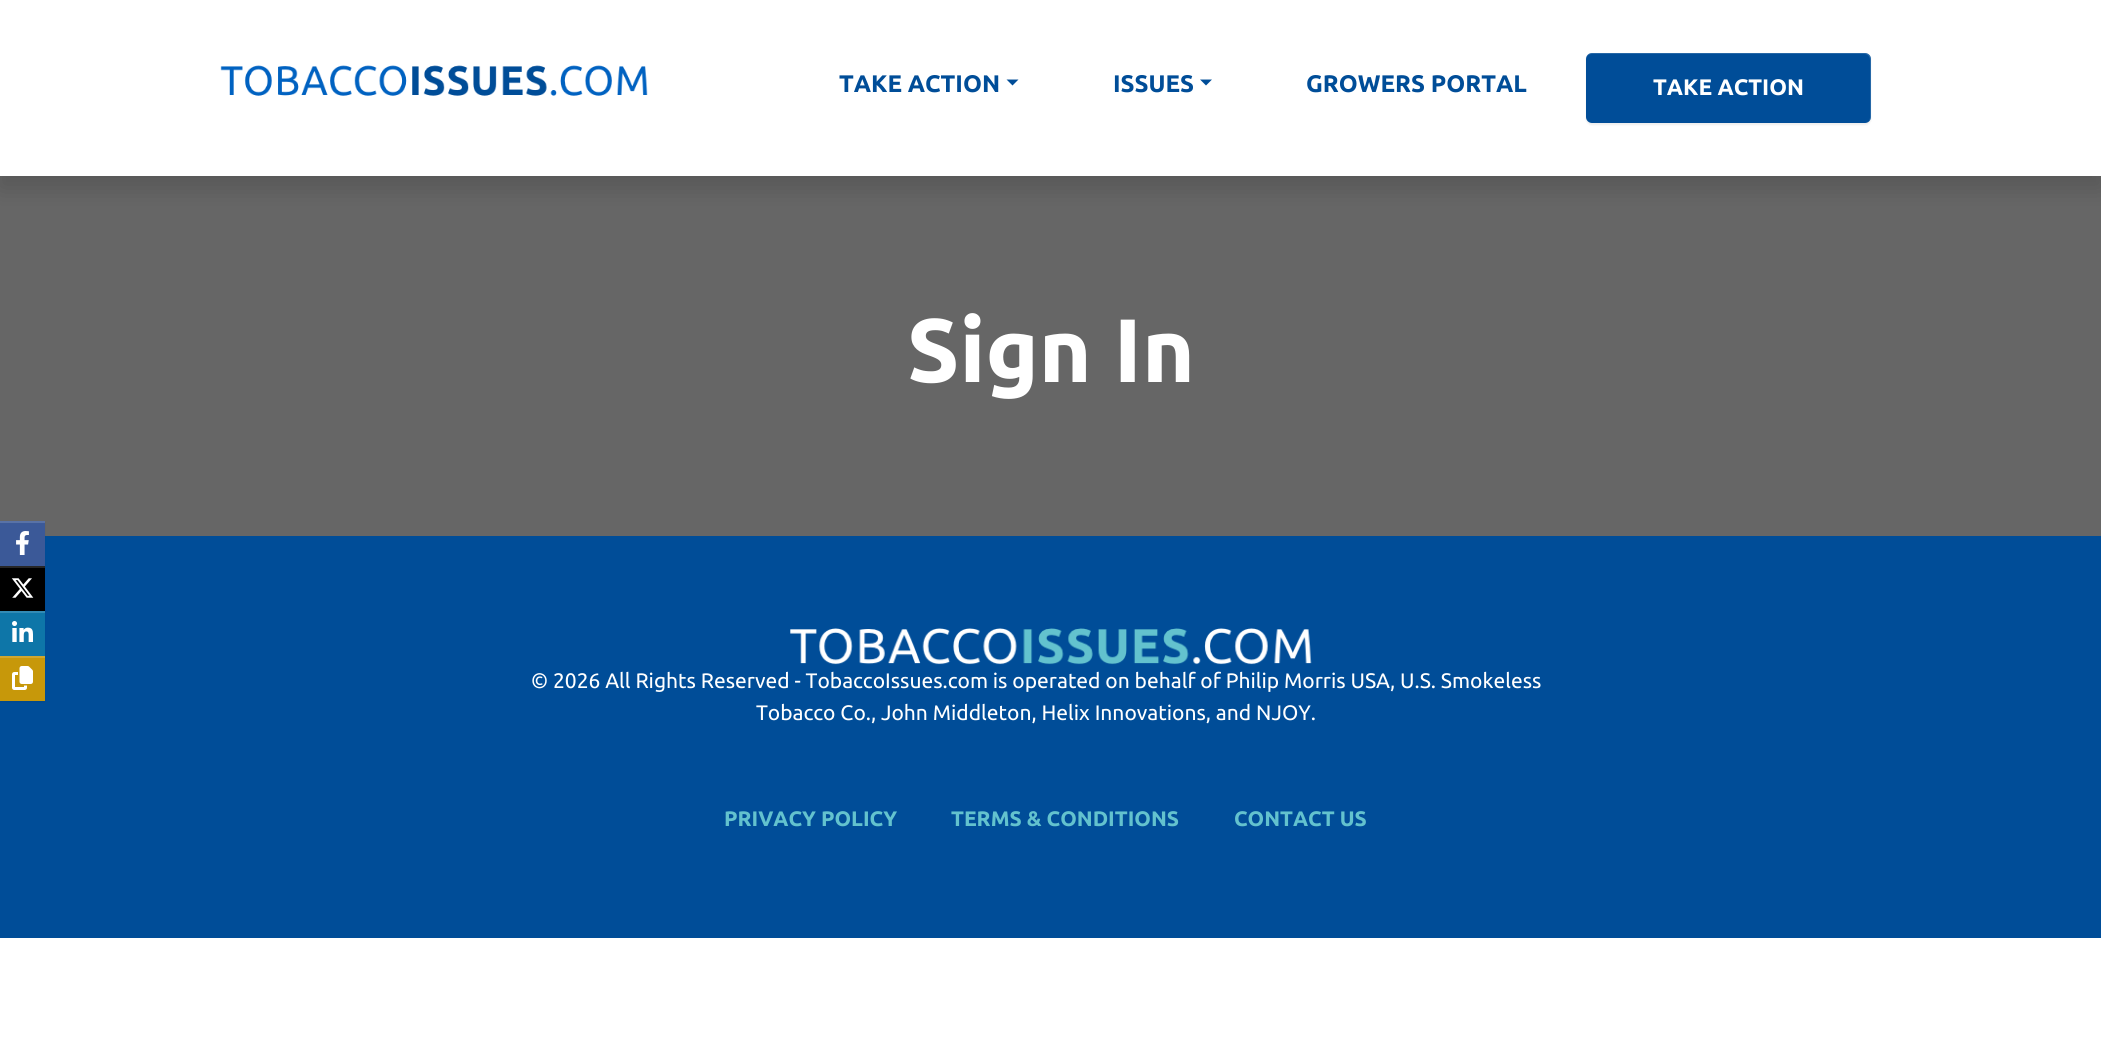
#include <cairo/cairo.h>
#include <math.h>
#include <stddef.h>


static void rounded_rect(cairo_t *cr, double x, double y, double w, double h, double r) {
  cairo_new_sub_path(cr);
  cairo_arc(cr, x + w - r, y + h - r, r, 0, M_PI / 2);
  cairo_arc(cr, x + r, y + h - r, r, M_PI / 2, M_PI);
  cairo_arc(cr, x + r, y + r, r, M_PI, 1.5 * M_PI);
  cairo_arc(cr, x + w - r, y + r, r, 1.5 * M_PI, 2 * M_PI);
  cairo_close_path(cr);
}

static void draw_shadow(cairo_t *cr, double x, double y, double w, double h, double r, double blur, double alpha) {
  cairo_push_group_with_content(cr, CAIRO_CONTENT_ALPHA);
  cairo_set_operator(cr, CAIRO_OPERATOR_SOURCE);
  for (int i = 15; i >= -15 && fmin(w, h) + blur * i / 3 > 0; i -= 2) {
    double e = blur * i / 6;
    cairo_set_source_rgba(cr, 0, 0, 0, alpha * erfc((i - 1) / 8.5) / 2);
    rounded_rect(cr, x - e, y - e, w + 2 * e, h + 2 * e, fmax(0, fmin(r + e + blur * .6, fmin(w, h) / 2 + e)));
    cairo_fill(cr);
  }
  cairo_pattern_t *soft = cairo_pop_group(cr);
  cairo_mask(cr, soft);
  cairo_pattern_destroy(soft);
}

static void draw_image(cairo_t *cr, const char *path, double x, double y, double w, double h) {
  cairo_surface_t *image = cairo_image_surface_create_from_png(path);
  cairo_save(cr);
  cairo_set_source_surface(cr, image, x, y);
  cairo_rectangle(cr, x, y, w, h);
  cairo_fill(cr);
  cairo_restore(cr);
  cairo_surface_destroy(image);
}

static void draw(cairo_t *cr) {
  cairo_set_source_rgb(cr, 1, 1, 1);
  cairo_paint(cr);
  cairo_set_source_rgb(cr, 0, 0, 0);
  draw_shadow(cr, 0, 12, 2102, 176, 0, 12, 0.15);
  cairo_set_source_rgb(cr, 1, 1, 1);
  cairo_rectangle(cr, 0, 0, 2101, 176);
  cairo_fill(cr);
  draw_image(cr, "images/1.png", 220, 65, 428, 31);
  cairo_set_source_rgb(cr, 0, 77 / 255.0, 152 / 255.0);
  cairo_new_path(cr);
  cairo_move_to(cr, 1006.5, 79.5);
  cairo_line_to(cr, 1018.5, 79.5);
  cairo_line_to(cr, 1012.5, 85.5);
  cairo_close_path(cr);
  cairo_fill(cr);
  cairo_new_path(cr);
  cairo_move_to(cr, 1200, 79.5);
  cairo_line_to(cr, 1212, 79.5);
  cairo_line_to(cr, 1206, 85.5);
  cairo_close_path(cr);
  cairo_fill(cr);
  cairo_set_source_rgb(cr, 0, 0, 0);
  draw_shadow(cr, 1586, 54, 285, 71, 6, 1, 0.07);
  cairo_set_source_rgb(cr, 0, 77 / 255.0, 152 / 255.0);
  rounded_rect(cr, 1586, 53, 285, 70, 6);
  cairo_fill(cr);
  cairo_set_source_rgba(cr, 1, 1, 1, 0.15);
  cairo_new_path(cr);
  cairo_move_to(cr, 1592, 54);
  cairo_line_to(cr, 1864, 54);
  cairo_curve_to(cr, 1868, 54, 1870, 57, 1870, 60);
  cairo_line_to(cr, 1870, 118);
  cairo_line_to(cr, 1869, 121);
  cairo_curve_to(cr, 1870, 120, 1871, 119, 1871, 117);
  cairo_line_to(cr, 1871, 59);
  cairo_curve_to(cr, 1871, 56, 1868, 53, 1865, 53);
  cairo_line_to(cr, 1592, 53);
  cairo_curve_to(cr, 1589, 53, 1586, 56, 1586, 59);
  cairo_line_to(cr, 1586, 60);
  cairo_curve_to(cr, 1586, 57, 1588, 54, 1592, 54);
  cairo_close_path(cr);
  cairo_fill(cr);
  cairo_set_source_rgba(cr, 0, 0, 0, 0.6);
  cairo_rectangle(cr, 0, 176, 2101, 360);
  cairo_fill(cr);
  cairo_set_source_rgb(cr, 0, 77 / 255.0, 152 / 255.0);
  cairo_rectangle(cr, 0, 536, 2101, 402);
  cairo_fill(cr);
  cairo_set_source_rgb(cr, 0, 0, 0);
  draw_shadow(cr, 0, 522, 45, 45, 0, 1, 0.07);
  cairo_set_source_rgb(cr, 59 / 255.0, 89 / 255.0, 152 / 255.0);
  cairo_rectangle(cr, 0, 523, 45, 43);
  cairo_fill(cr);
  cairo_set_source_rgb(cr, 88 / 255.0, 114 / 255.0, 167 / 255.0);
  cairo_rectangle(cr, 0, 521, 45, 2);
  cairo_fill(cr);
  draw_image(cr, "images/2.png", 16, 531, 13, 24);
  cairo_set_source_rgb(cr, 0, 0, 0);
  draw_shadow(cr, 0, 567, 45, 45, 0, 1, 0.07);
  cairo_set_source_rgb(cr, 0, 0, 0);
  cairo_rectangle(cr, 0, 568, 45, 43);
  cairo_fill(cr);
  cairo_set_source_rgb(cr, 38 / 255.0, 38 / 255.0, 38 / 255.0);
  cairo_rectangle(cr, 0, 566, 45, 2);
  cairo_fill(cr);
  draw_image(cr, "images/3.png", 11, 578, 23, 20);
  cairo_set_source_rgb(cr, 0, 0, 0);
  draw_shadow(cr, 0, 612, 45, 45, 0, 1, 0.07);
  cairo_set_source_rgb(cr, 14 / 255.0, 118 / 255.0, 168 / 255.0);
  cairo_rectangle(cr, 0, 613, 45, 43);
  cairo_fill(cr);
  cairo_set_source_rgb(cr, 50 / 255.0, 139 / 255.0, 181 / 255.0);
  cairo_rectangle(cr, 0, 611, 45, 2);
  cairo_fill(cr);
  draw_image(cr, "images/4.png", 12, 621, 21, 21);
  cairo_set_source_rgb(cr, 0, 0, 0);
  draw_shadow(cr, 0, 657, 45, 45, 0, 1, 0.07);
  cairo_set_source_rgb(cr, 199 / 255.0, 152 / 255.0, 10 / 255.0);
  cairo_rectangle(cr, 0, 658, 45, 43);
  cairo_fill(cr);
  cairo_set_source_rgb(cr, 207 / 255.0, 167 / 255.0, 47 / 255.0);
  cairo_rectangle(cr, 0, 656, 45, 2);
  cairo_fill(cr);
  draw_image(cr, "images/5.png", 12, 666, 21, 24);
  draw_image(cr, "images/6.png", 790, 628, 522, 37);
  cairo_select_font_face(cr, "Ubuntu", CAIRO_FONT_SLANT_NORMAL, CAIRO_FONT_WEIGHT_BOLD);
  cairo_set_font_size(cr, 24);
  cairo_set_source_rgb(cr, 0, 77 / 255.0, 152 / 255.0);
  cairo_move_to(cr, 839, 92);
  cairo_show_text(cr, "TAKE ACTION");
  cairo_move_to(cr, 1113, 92);
  cairo_show_text(cr, "ISSUES");
  cairo_move_to(cr, 1306, 92);
  cairo_show_text(cr, "GROWERS PORTAL");
  cairo_set_font_size(cr, 22.5);
  cairo_set_source_rgb(cr, 1, 1, 1);
  cairo_move_to(cr, 1653, 95);
  cairo_show_text(cr, "TAKE ACTION");
  cairo_set_font_size(cr, 90);
  cairo_move_to(cr, 907, 382);
  cairo_show_text(cr, "Sign In");
  cairo_select_font_face(cr, "Ubuntu", CAIRO_FONT_SLANT_NORMAL, CAIRO_FONT_WEIGHT_NORMAL);
  cairo_set_font_size(cr, 21);
  cairo_move_to(cr, 531, 688);
  cairo_show_text(cr, "© 2026 All Rights Reserved - TobaccoIssues.com is operated on behalf of Philip Morris USA, U.S. Smokeless");
  cairo_move_to(cr, 756, 720);
  cairo_show_text(cr, "Tobacco Co., John Middleton, Helix Innovations, and NJOY.");
  cairo_select_font_face(cr, "Ubuntu", CAIRO_FONT_SLANT_NORMAL, CAIRO_FONT_WEIGHT_BOLD);
  cairo_set_source_rgb(cr, 99 / 255.0, 194 / 255.0, 206 / 255.0);
  cairo_move_to(cr, 724, 826);
  cairo_show_text(cr, "PRIVACY POLICY");
  cairo_move_to(cr, 951, 826);
  cairo_show_text(cr, "TERMS & CONDITIONS");
  cairo_move_to(cr, 1234, 826);
  cairo_show_text(cr, "CONTACT US");
}

int main(void) {
  cairo_surface_t *surface = cairo_image_surface_create(CAIRO_FORMAT_RGB24, 2101, 1039);
  cairo_t *cr = cairo_create(surface);
  cairo_font_options_t *options = cairo_font_options_create();
  cairo_font_options_set_hint_metrics(options, CAIRO_HINT_METRICS_OFF);
  cairo_font_options_set_hint_style(options, CAIRO_HINT_STYLE_NONE);
  cairo_set_font_options(cr, options);
  cairo_set_miter_limit(cr, 4);
  draw(cr);
  cairo_surface_write_to_png(surface, "out.png");
  cairo_font_options_destroy(options);
  cairo_destroy(cr);
  cairo_surface_destroy(surface);
  return 0;
}
